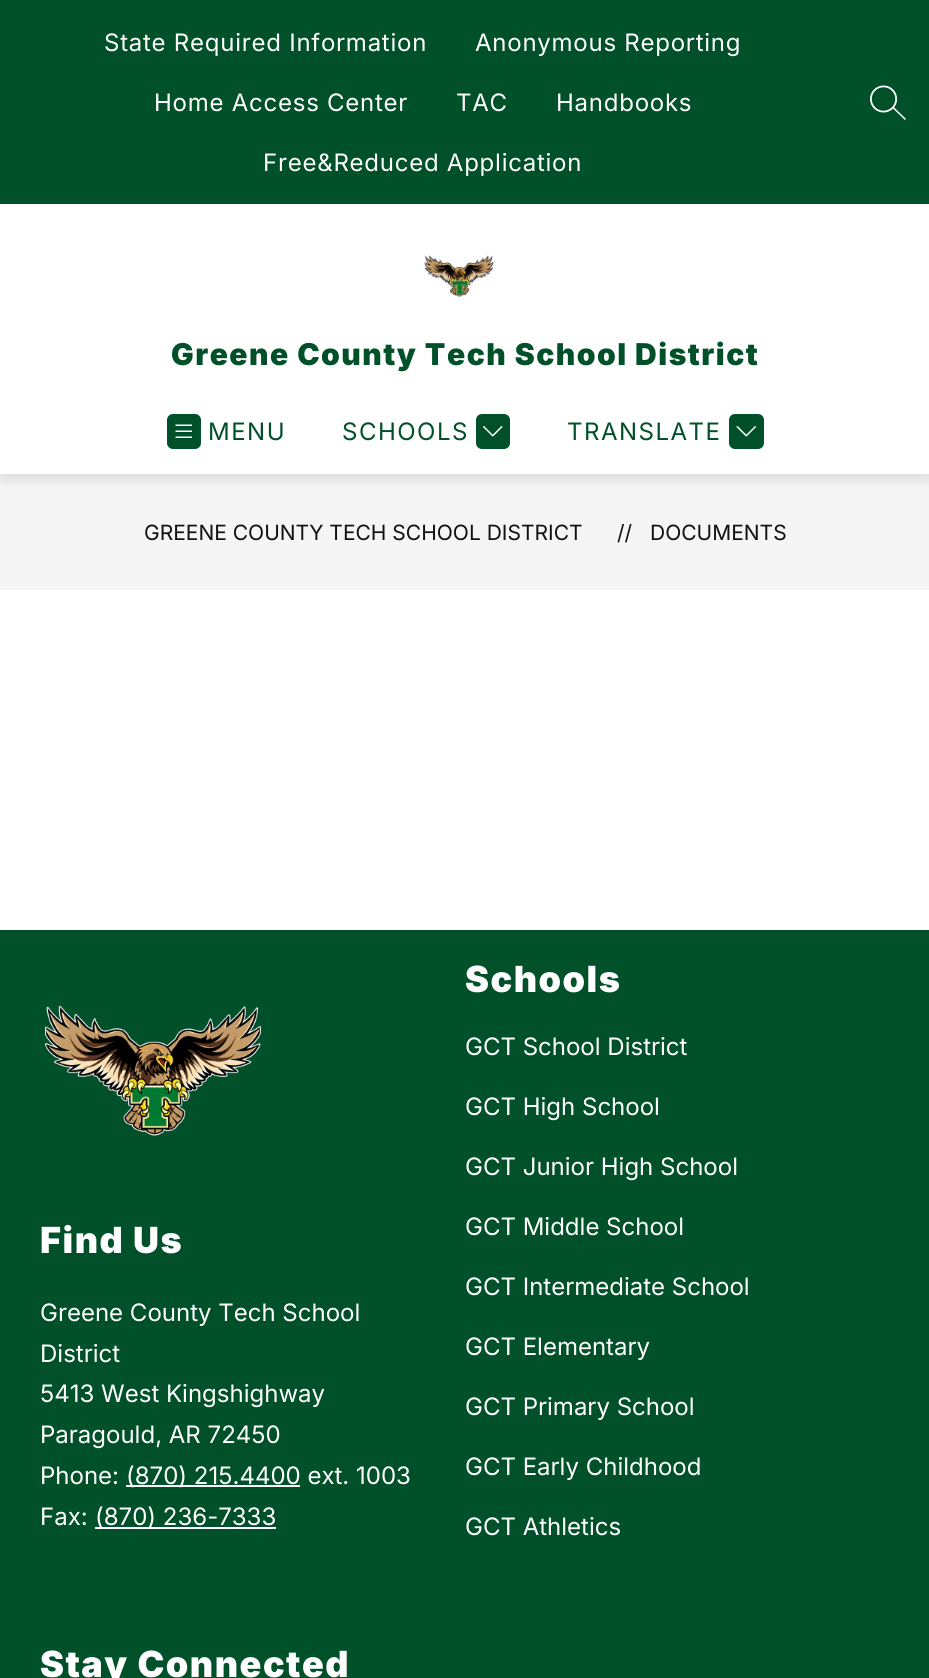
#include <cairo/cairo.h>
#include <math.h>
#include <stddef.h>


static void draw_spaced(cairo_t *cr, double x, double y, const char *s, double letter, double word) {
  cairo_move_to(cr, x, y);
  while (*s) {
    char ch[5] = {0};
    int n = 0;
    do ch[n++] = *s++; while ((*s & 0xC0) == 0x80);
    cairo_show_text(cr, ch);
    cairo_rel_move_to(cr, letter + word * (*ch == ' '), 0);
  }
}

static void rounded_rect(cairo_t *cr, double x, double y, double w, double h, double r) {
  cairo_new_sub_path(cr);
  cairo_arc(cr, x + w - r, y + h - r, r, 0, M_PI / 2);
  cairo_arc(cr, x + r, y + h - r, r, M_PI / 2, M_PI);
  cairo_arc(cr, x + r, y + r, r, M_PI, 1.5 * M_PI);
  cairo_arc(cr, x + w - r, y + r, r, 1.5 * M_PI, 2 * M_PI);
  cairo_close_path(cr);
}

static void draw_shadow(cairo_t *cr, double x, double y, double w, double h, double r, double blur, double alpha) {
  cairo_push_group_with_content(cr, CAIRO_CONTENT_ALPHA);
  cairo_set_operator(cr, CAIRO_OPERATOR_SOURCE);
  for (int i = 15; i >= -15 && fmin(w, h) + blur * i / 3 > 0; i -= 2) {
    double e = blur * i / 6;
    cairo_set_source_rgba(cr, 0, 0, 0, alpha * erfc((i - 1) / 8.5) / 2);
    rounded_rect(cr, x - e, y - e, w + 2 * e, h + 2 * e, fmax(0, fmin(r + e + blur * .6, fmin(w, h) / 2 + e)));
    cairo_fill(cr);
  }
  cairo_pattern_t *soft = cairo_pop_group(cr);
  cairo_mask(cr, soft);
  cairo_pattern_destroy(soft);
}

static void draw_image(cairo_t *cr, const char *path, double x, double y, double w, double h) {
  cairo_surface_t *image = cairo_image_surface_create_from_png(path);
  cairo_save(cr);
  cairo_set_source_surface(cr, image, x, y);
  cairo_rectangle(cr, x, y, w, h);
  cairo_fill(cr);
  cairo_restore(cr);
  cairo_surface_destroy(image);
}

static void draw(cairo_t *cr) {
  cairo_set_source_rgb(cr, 1, 1, 1);
  cairo_paint(cr);
  cairo_set_source_rgb(cr, 245 / 255.0, 245 / 255.0, 245 / 255.0);
  cairo_rectangle(cr, 0, 474, 929, 116);
  cairo_fill(cr);
  cairo_save(cr);
  cairo_rectangle(cr, 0, 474, 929, 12);
  cairo_clip(cr);
  cairo_set_source_rgb(cr, 0, 0, 0);
  draw_shadow(cr, 0, 6, 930, 474, 0, 7.5, 0.1);
  cairo_restore(cr);
  cairo_set_source_rgb(cr, 0, 80 / 255.0, 41 / 255.0);
  cairo_rectangle(cr, 0, 0, 929, 204);
  cairo_fill(cr);
  draw_image(cr, "images/1.png", 870, 85, 36, 35);
  draw_image(cr, "images/2.png", 424, 255, 70, 42);
  draw_image(cr, "images/3.png", 167, 414, 34, 35);
  draw_image(cr, "images/4.png", 476, 414, 34, 35);
  draw_image(cr, "images/5.png", 729, 414, 35, 35);
  cairo_rectangle(cr, 0, 930, 929, 748);
  cairo_fill(cr);
  draw_image(cr, "images/6.png", 45, 1005, 216, 131);
  cairo_set_source_rgb(cr, 1, 1, 1);
  cairo_rectangle(cr, 126, 1485, 174, 2);
  cairo_fill(cr);
  cairo_rectangle(cr, 95, 1527, 181, 2);
  cairo_fill(cr);
  cairo_select_font_face(cr, "Inter", CAIRO_FONT_SLANT_NORMAL, CAIRO_FONT_WEIGHT_NORMAL);
  cairo_set_font_size(cr, 24);
  draw_spaced(cr, 104, 51, "State Required Information", 0.75, 0);
  draw_spaced(cr, 475, 51, "Anonymous Reporting", 0.75, 0);
  draw_spaced(cr, 154, 111, "Home Access Center", 0.75, 0);
  draw_spaced(cr, 456, 111, "TAC", 0.75, 0);
  draw_spaced(cr, 556, 111, "Handbooks", 0.75, 0);
  draw_spaced(cr, 263, 171, "Free&Reduced Application", 0.75, 0);
  cairo_select_font_face(cr, "Inter Black", CAIRO_FONT_SLANT_NORMAL, CAIRO_FONT_WEIGHT_NORMAL);
  cairo_set_font_size(cr, 30);
  cairo_set_source_rgb(cr, 0, 80 / 255.0, 41 / 255.0);
  draw_spaced(cr, 171, 365, "Greene County Tech School District", 1.5, 0);
  cairo_select_font_face(cr, "Inter", CAIRO_FONT_SLANT_NORMAL, CAIRO_FONT_WEIGHT_NORMAL);
  cairo_set_font_size(cr, 24);
  draw_spaced(cr, 208, 440, "MENU", 1.5, 0);
  draw_spaced(cr, 342, 440, "SCHOOLS", 1.5, 0);
  draw_spaced(cr, 567, 440, "TRANSLATE", 1.5, 0);
  cairo_set_font_size(cr, 21);
  cairo_set_source_rgb(cr, 17 / 255.0, 17 / 255.0, 17 / 255.0);
  cairo_move_to(cr, 144, 540);
  cairo_show_text(cr, "GREENE COUNTY TECH SCHOOL DISTRICT");
  cairo_move_to(cr, 617, 540);
  cairo_show_text(cr, "//");
  cairo_move_to(cr, 650, 540);
  cairo_show_text(cr, "DOCUMENTS");
  cairo_select_font_face(cr, "Inter Black", CAIRO_FONT_SLANT_NORMAL, CAIRO_FONT_WEIGHT_NORMAL);
  cairo_set_font_size(cr, 36);
  cairo_set_source_rgb(cr, 1, 1, 1);
  draw_spaced(cr, 40, 1253, "Find Us", 1.5, 0);
  cairo_select_font_face(cr, "Inter", CAIRO_FONT_SLANT_NORMAL, CAIRO_FONT_WEIGHT_NORMAL);
  cairo_set_font_size(cr, 24);
  cairo_move_to(cr, 40, 1321);
  cairo_show_text(cr, "Greene County Tech School");
  cairo_move_to(cr, 40, 1362);
  cairo_show_text(cr, "District");
  cairo_move_to(cr, 40, 1402);
  cairo_show_text(cr, "5413 West Kingshighway");
  cairo_move_to(cr, 40, 1443);
  cairo_show_text(cr, "Paragould, AR 72450");
  cairo_move_to(cr, 40, 1484);
  cairo_show_text(cr, "Phone:");
  cairo_move_to(cr, 126, 1484);
  cairo_show_text(cr, "(870) 215.4400 ext. 1003");
  cairo_move_to(cr, 40, 1525);
  cairo_show_text(cr, "Fax:");
  cairo_move_to(cr, 95, 1525);
  cairo_show_text(cr, "(870) 236-7333");
  cairo_select_font_face(cr, "Inter Black", CAIRO_FONT_SLANT_NORMAL, CAIRO_FONT_WEIGHT_NORMAL);
  cairo_set_font_size(cr, 36);
  draw_spaced(cr, 465, 992, "Schools", 1.5, 0);
  cairo_select_font_face(cr, "Inter", CAIRO_FONT_SLANT_NORMAL, CAIRO_FONT_WEIGHT_NORMAL);
  cairo_set_font_size(cr, 24);
  cairo_move_to(cr, 465, 1055);
  cairo_show_text(cr, "GCT School District");
  cairo_move_to(cr, 465, 1115);
  cairo_show_text(cr, "GCT High School");
  cairo_move_to(cr, 465, 1175);
  cairo_show_text(cr, "GCT Junior High School");
  cairo_move_to(cr, 465, 1235);
  cairo_show_text(cr, "GCT Middle School");
  cairo_move_to(cr, 465, 1295);
  cairo_show_text(cr, "GCT Intermediate School");
  cairo_move_to(cr, 465, 1355);
  cairo_show_text(cr, "GCT Elementary");
  cairo_move_to(cr, 465, 1415);
  cairo_show_text(cr, "GCT Primary School");
  cairo_move_to(cr, 465, 1475);
  cairo_show_text(cr, "GCT Early Childhood");
  cairo_move_to(cr, 465, 1535);
  cairo_show_text(cr, "GCT Athletics");
  cairo_select_font_face(cr, "Inter Black", CAIRO_FONT_SLANT_NORMAL, CAIRO_FONT_WEIGHT_NORMAL);
  cairo_set_font_size(cr, 36);
  draw_spaced(cr, 40, 1677, "Stay Connected", 1.5, 0);
}

int main(void) {
  cairo_surface_t *surface = cairo_image_surface_create(CAIRO_FORMAT_RGB24, 929, 1678);
  cairo_t *cr = cairo_create(surface);
  cairo_font_options_t *options = cairo_font_options_create();
  cairo_font_options_set_hint_metrics(options, CAIRO_HINT_METRICS_OFF);
  cairo_font_options_set_hint_style(options, CAIRO_HINT_STYLE_NONE);
  cairo_set_font_options(cr, options);
  cairo_set_miter_limit(cr, 4);
  draw(cr);
  cairo_surface_write_to_png(surface, "out.png");
  cairo_font_options_destroy(options);
  cairo_destroy(cr);
  cairo_surface_destroy(surface);
  return 0;
}
